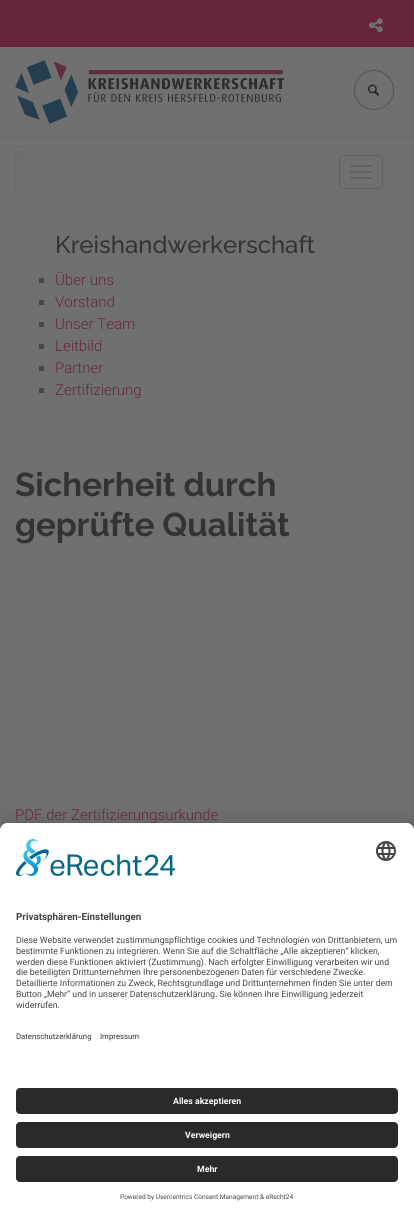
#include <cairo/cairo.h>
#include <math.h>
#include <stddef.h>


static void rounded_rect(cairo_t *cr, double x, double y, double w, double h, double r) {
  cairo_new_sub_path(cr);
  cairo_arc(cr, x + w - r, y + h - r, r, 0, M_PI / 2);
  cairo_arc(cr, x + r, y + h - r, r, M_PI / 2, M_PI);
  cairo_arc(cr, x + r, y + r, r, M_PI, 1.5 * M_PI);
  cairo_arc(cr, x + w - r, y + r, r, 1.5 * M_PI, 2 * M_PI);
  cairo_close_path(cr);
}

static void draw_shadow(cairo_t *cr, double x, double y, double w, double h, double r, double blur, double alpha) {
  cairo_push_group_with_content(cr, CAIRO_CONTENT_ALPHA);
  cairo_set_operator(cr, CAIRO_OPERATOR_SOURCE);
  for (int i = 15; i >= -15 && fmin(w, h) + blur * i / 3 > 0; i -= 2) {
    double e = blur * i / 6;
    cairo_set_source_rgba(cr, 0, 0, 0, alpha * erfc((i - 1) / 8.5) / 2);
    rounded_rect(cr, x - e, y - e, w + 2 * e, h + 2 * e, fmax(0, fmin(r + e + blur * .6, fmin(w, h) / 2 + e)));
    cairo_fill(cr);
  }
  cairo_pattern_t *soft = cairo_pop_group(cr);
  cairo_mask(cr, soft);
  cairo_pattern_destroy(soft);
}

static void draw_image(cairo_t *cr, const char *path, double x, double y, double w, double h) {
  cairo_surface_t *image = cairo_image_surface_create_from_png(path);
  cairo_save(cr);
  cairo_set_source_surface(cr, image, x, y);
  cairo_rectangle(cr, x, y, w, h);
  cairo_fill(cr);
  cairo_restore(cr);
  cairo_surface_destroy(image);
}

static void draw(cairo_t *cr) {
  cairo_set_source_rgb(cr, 112 / 255.0, 112 / 255.0, 112 / 255.0);
  cairo_paint(cr);
  cairo_set_source_rgb(cr, 102 / 255.0, 37 / 255.0, 60 / 255.0);
  cairo_rectangle(cr, 0, 0, 414, 47);
  cairo_fill(cr);
  draw_image(cr, "images/1.png", 369, 18, 14, 15);
  cairo_set_source_rgb(cr, 108 / 255.0, 108 / 255.0, 108 / 255.0);
  cairo_rectangle(cr, 0, 137, 414, 2);
  cairo_fill(cr);
  draw_image(cr, "images/2.png", 15, 60, 269, 64);
  cairo_arc(cr, 374, 90, 19.5, 0, 2 * M_PI);
  cairo_set_source_rgb(cr, 82 / 255.0, 82 / 255.0, 82 / 255.0);
  cairo_set_line_width(cr, 1);
  cairo_stroke(cr);
  draw_image(cr, "images/3.png", 368, 84, 11, 12);
  draw_image(cr, "images/4.png", 16, 150, 10, 9);
  draw_image(cr, "images/5.png", 95, 152, 6, 7);
  draw_image(cr, "images/5.png", 18, 170, 6, 7);
  cairo_set_source_rgba(cr, 112 / 255.0, 112 / 255.0, 112 / 255.0, 0.9);
  rounded_rect(cr, 15.5, 146.5, 383, 51, 2.5);
  cairo_fill_preserve(cr);
  cairo_set_source_rgb(cr, 107 / 255.0, 107 / 255.0, 107 / 255.0);
  cairo_stroke(cr);
  rounded_rect(cr, 339.5, 155.5, 43, 33, 3.5);
  cairo_set_source_rgb(cr, 97 / 255.0, 97 / 255.0, 97 / 255.0);
  cairo_stroke(cr);
  rounded_rect(cr, 350, 165, 22, 2, 1);
  cairo_fill(cr);
  rounded_rect(cr, 350, 171, 22, 2, 1);
  cairo_fill(cr);
  rounded_rect(cr, 350, 177, 22, 2, 1);
  cairo_fill(cr);
  cairo_set_source_rgb(cr, 71 / 255.0, 71 / 255.0, 71 / 255.0);
  cairo_rectangle(cr, 39, 278, 5, 5);
  cairo_fill(cr);
  cairo_rectangle(cr, 39, 300, 5, 5);
  cairo_fill(cr);
  cairo_rectangle(cr, 39, 322, 5, 5);
  cairo_fill(cr);
  cairo_rectangle(cr, 39, 344, 5, 5);
  cairo_fill(cr);
  cairo_rectangle(cr, 39, 366, 5, 5);
  cairo_fill(cr);
  cairo_rectangle(cr, 39, 388, 5, 5);
  cairo_fill(cr);
  cairo_set_source_rgb(cr, 107 / 255.0, 107 / 255.0, 107 / 255.0);
  cairo_rectangle(cr, 15, 564, 384, 1);
  cairo_fill(cr);
  cairo_set_source_rgb(cr, 0, 0, 0);
  draw_shadow(cr, 0, 843, 414, 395, 8, 14, 0.3);
  draw_shadow(cr, 0, 828, 414, 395, 8, 13, 0.22);
  cairo_select_font_face(cr, "Raleway Medium", CAIRO_FONT_SLANT_NORMAL, CAIRO_FONT_WEIGHT_NORMAL);
  cairo_set_font_size(cr, 24);
  cairo_set_source_rgb(cr, 51 / 255.0, 51 / 255.0, 51 / 255.0);
  cairo_move_to(cr, 55, 253);
  cairo_show_text(cr, "Kreishandwerkerschaft");
  cairo_select_font_face(cr, "Roboto Light", CAIRO_FONT_SLANT_NORMAL, CAIRO_FONT_WEIGHT_NORMAL);
  cairo_set_font_size(cr, 15);
  cairo_set_source_rgb(cr, 102 / 255.0, 37 / 255.0, 60 / 255.0);
  cairo_move_to(cr, 55, 285);
  cairo_show_text(cr, "Über uns");
  cairo_move_to(cr, 55, 307);
  cairo_show_text(cr, "Vorstand");
  cairo_move_to(cr, 55, 329);
  cairo_show_text(cr, "Unser Team");
  cairo_move_to(cr, 55, 351);
  cairo_show_text(cr, "Leitbild");
  cairo_move_to(cr, 55, 373);
  cairo_show_text(cr, "Partner");
  cairo_move_to(cr, 55, 395);
  cairo_show_text(cr, "Zertifizierung");
  cairo_select_font_face(cr, "Raleway", CAIRO_FONT_SLANT_NORMAL, CAIRO_FONT_WEIGHT_BOLD);
  cairo_set_font_size(cr, 33);
  cairo_set_source_rgb(cr, 51 / 255.0, 51 / 255.0, 51 / 255.0);
  cairo_move_to(cr, 15, 496);
  cairo_show_text(cr, "Sicherheit durch");
  cairo_move_to(cr, 15, 536);
  cairo_show_text(cr, "geprüfte Qualität");
  cairo_select_font_face(cr, "Roboto Light", CAIRO_FONT_SLANT_NORMAL, CAIRO_FONT_WEIGHT_NORMAL);
  cairo_set_font_size(cr, 15);
  cairo_set_source_rgb(cr, 102 / 255.0, 37 / 255.0, 60 / 255.0);
  cairo_move_to(cr, 15, 820);
  cairo_show_text(cr, "PDF der Zertifizierungsurkunde");
  cairo_set_source_rgb(cr, 1, 1, 1);
  cairo_new_path(cr);
  cairo_move_to(cr, 8, 823);
  cairo_line_to(cr, 406, 823);
  cairo_curve_to(cr, 410.5, 823, 414, 826.5, 414, 831);
  cairo_line_to(cr, 414, 1218);
  cairo_line_to(cr, 0, 1218);
  cairo_line_to(cr, 0, 831);
  cairo_curve_to(cr, 0, 826.5, 3.5, 823, 8, 823);
  cairo_close_path(cr);
  cairo_fill(cr);
  cairo_new_path(cr);
  cairo_move_to(cr, 8, 823);
  cairo_line_to(cr, 406, 823);
  cairo_curve_to(cr, 410.5, 823, 414, 826.5, 414, 831);
  cairo_line_to(cr, 414, 1076);
  cairo_line_to(cr, 0, 1076);
  cairo_line_to(cr, 0, 831);
  cairo_curve_to(cr, 0, 826.5, 3.5, 823, 8, 823);
  cairo_close_path(cr);
  cairo_fill(cr);
  draw_image(cr, "images/6.png", 16, 839, 160, 37);
  draw_image(cr, "images/7.png", 376, 841, 20, 20);
  cairo_select_font_face(cr, "Roboto", CAIRO_FONT_SLANT_NORMAL, CAIRO_FONT_WEIGHT_BOLD);
  cairo_set_font_size(cr, 9.8);
  cairo_set_source_rgb(cr, 68 / 255.0, 68 / 255.0, 68 / 255.0);
  cairo_move_to(cr, 16, 920);
  cairo_show_text(cr, "Privatsphären-Einstellungen");
  cairo_select_font_face(cr, "Roboto", CAIRO_FONT_SLANT_NORMAL, CAIRO_FONT_WEIGHT_NORMAL);
  cairo_set_font_size(cr, 8.75);
  cairo_move_to(cr, 16, 943);
  cairo_show_text(cr, "Diese Website verwendet zustimmungspflichtige cookies und Technologien von Drittanbietern, um");
  cairo_move_to(cr, 16, 954);
  cairo_show_text(cr, "bestimmte Funktionen zu integrieren. Wenn Sie auf die Schaltfläche „Alle akzeptieren“ klicken,");
  cairo_move_to(cr, 16, 965);
  cairo_show_text(cr, "werden diese Funktionen aktiviert (Zustimmung). Nach erfolgter Einwilligung verarbeiten wir und");
  cairo_move_to(cr, 16, 975);
  cairo_show_text(cr, "die beteiligten Drittunternehmen Ihre personenbezogenen Daten für verschiedene Zwecke.");
  cairo_move_to(cr, 16, 986);
  cairo_show_text(cr, "Detaillierte Informationen zu Zweck, Rechtsgrundlage und Drittunternehmen finden Sie unter dem");
  cairo_move_to(cr, 16, 997);
  cairo_show_text(cr, "Button „Mehr“ und in unserer Datenschutzerklärung. Sie können Ihre Einwilligung jederzeit");
  cairo_move_to(cr, 16, 1008);
  cairo_show_text(cr, "widerrufen.");
  cairo_set_font_size(cr, 7.75);
  cairo_set_source_rgb(cr, 51 / 255.0, 51 / 255.0, 51 / 255.0);
  cairo_move_to(cr, 16, 1039);
  cairo_show_text(cr, "Datenschutzerklärung");
  cairo_move_to(cr, 100, 1039);
  cairo_show_text(cr, "Impressum");
  cairo_set_source_rgb(cr, 41 / 255.0, 42 / 255.0, 43 / 255.0);
  rounded_rect(cr, 16, 1088, 382, 26, 4);
  cairo_fill(cr);
  cairo_select_font_face(cr, "Roboto", CAIRO_FONT_SLANT_NORMAL, CAIRO_FONT_WEIGHT_BOLD);
  cairo_set_font_size(cr, 8.75);
  cairo_set_source_rgb(cr, 1, 1, 1);
  cairo_move_to(cr, 173, 1104);
  cairo_show_text(cr, "Alles akzeptieren");
  cairo_set_source_rgb(cr, 41 / 255.0, 42 / 255.0, 43 / 255.0);
  rounded_rect(cr, 16, 1122, 382, 26, 4);
  cairo_fill(cr);
  cairo_set_source_rgb(cr, 1, 1, 1);
  cairo_move_to(cr, 185, 1138);
  cairo_show_text(cr, "Verweigern");
  cairo_set_source_rgb(cr, 41 / 255.0, 42 / 255.0, 43 / 255.0);
  rounded_rect(cr, 16, 1156, 382, 26, 4);
  cairo_fill(cr);
  cairo_set_source_rgb(cr, 1, 1, 1);
  cairo_move_to(cr, 197, 1172);
  cairo_show_text(cr, "Mehr");
  cairo_select_font_face(cr, "Roboto", CAIRO_FONT_SLANT_NORMAL, CAIRO_FONT_WEIGHT_NORMAL);
  cairo_set_font_size(cr, 6.55);
  cairo_set_source_rgb(cr, 68 / 255.0, 68 / 255.0, 68 / 255.0);
  cairo_move_to(cr, 120, 1199);
  cairo_show_text(cr, "Powered by Usercentrics Consent Management & eRecht24");
}

int main(void) {
  cairo_surface_t *surface = cairo_image_surface_create(CAIRO_FORMAT_RGB24, 414, 1218);
  cairo_t *cr = cairo_create(surface);
  cairo_font_options_t *options = cairo_font_options_create();
  cairo_font_options_set_hint_metrics(options, CAIRO_HINT_METRICS_OFF);
  cairo_font_options_set_hint_style(options, CAIRO_HINT_STYLE_NONE);
  cairo_set_font_options(cr, options);
  cairo_set_miter_limit(cr, 4);
  draw(cr);
  cairo_surface_write_to_png(surface, "out.png");
  cairo_font_options_destroy(options);
  cairo_destroy(cr);
  cairo_surface_destroy(surface);
  return 0;
}
